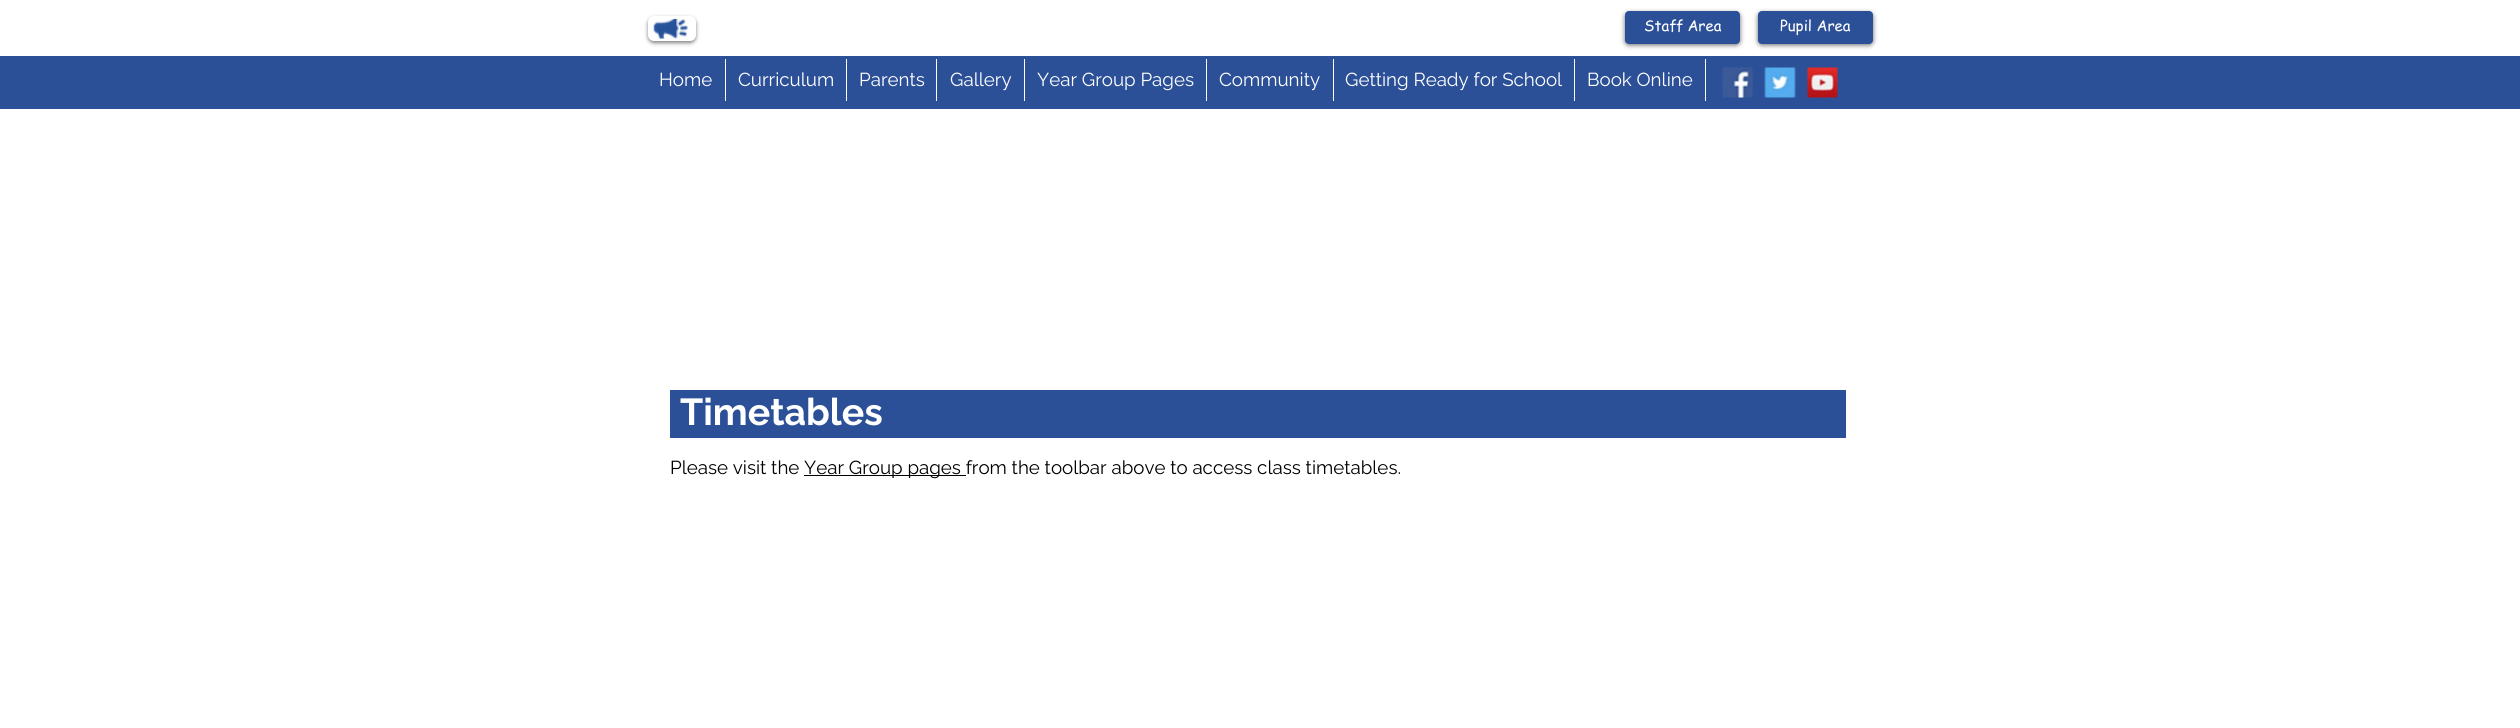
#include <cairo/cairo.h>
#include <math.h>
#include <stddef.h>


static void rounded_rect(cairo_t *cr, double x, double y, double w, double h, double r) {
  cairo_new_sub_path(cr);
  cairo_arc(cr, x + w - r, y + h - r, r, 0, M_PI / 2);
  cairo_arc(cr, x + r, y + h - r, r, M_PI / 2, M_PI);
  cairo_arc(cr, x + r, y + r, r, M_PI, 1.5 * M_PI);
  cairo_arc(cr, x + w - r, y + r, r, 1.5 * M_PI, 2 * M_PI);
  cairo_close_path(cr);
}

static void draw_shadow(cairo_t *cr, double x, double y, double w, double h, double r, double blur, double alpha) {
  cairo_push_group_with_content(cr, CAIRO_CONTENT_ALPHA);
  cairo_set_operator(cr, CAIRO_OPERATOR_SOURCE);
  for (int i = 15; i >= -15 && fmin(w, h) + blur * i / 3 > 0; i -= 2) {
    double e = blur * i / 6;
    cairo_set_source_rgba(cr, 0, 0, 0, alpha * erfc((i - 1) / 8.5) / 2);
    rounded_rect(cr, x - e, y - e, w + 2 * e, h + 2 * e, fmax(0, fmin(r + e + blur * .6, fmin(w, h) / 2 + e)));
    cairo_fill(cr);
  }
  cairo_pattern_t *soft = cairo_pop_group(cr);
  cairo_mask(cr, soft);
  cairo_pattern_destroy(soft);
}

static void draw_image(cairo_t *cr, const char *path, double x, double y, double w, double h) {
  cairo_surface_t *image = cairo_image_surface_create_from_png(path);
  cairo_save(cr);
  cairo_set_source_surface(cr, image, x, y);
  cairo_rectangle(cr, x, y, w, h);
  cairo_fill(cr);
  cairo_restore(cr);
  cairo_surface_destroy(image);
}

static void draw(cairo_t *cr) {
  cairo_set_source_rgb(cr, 1, 1, 1);
  cairo_paint(cr);
  cairo_set_source_rgb(cr, 0, 0, 0);
  draw_shadow(cr, 648, 18, 48, 25, 6, 2, 0.5);
  cairo_set_source_rgb(cr, 1, 1, 1);
  rounded_rect(cr, 649.5, 17.5, 45, 22, 4.5);
  cairo_fill_preserve(cr);
  cairo_set_line_width(cr, 3);
  cairo_stroke(cr);
  draw_image(cr, "images/1.png", 653, 18, 35, 21);
  cairo_set_source_rgb(cr, 0, 0, 0);
  draw_shadow(cr, 1625, 13, 115, 32, 4, 2.5, 0.6);
  cairo_set_source_rgb(cr, 44 / 255.0, 80 / 255.0, 152 / 255.0);
  rounded_rect(cr, 1625, 11, 115, 33, 4);
  cairo_fill(cr);
  cairo_set_source_rgb(cr, 0, 0, 0);
  draw_shadow(cr, 1758, 13, 115, 32, 4, 2.5, 0.6);
  cairo_set_source_rgb(cr, 44 / 255.0, 80 / 255.0, 152 / 255.0);
  rounded_rect(cr, 1758, 11, 115, 33, 4);
  cairo_fill(cr);
  cairo_rectangle(cr, 0, 56, 2520, 53);
  cairo_fill(cr);
  cairo_set_source_rgb(cr, 1, 1, 1);
  cairo_rectangle(cr, 725, 59, 1, 42);
  cairo_fill(cr);
  cairo_rectangle(cr, 846, 59, 1, 42);
  cairo_fill(cr);
  cairo_rectangle(cr, 936, 59, 1, 42);
  cairo_fill(cr);
  cairo_rectangle(cr, 1024, 59, 1, 42);
  cairo_fill(cr);
  cairo_rectangle(cr, 1206, 59, 1, 42);
  cairo_fill(cr);
  cairo_rectangle(cr, 1333, 59, 1, 42);
  cairo_fill(cr);
  cairo_rectangle(cr, 1574, 59, 1, 42);
  cairo_fill(cr);
  cairo_rectangle(cr, 1705, 59, 1, 42);
  cairo_fill(cr);
  draw_image(cr, "images/2.png", 1722, 67, 31, 31);
  draw_image(cr, "images/3.png", 1764, 67, 32, 31);
  draw_image(cr, "images/4.png", 1807, 67, 31, 31);
  cairo_set_source_rgb(cr, 44 / 255.0, 80 / 255.0, 152 / 255.0);
  cairo_rectangle(cr, 670, 390, 1176, 48);
  cairo_fill(cr);
  cairo_set_source_rgb(cr, 0, 0, 0);
  cairo_rectangle(cr, 804, 475, 162, 1);
  cairo_fill(cr);
  cairo_select_font_face(cr, "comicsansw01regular", CAIRO_FONT_SLANT_NORMAL, CAIRO_FONT_WEIGHT_NORMAL);
  cairo_set_font_size(cr, 15);
  cairo_set_source_rgb(cr, 1, 1, 1);
  cairo_move_to(cr, 1644, 31);
  cairo_show_text(cr, "Staff Area");
  cairo_move_to(cr, 1780, 31);
  cairo_show_text(cr, "Pupil Area");
  cairo_select_font_face(cr, "Raleway", CAIRO_FONT_SLANT_NORMAL, CAIRO_FONT_WEIGHT_NORMAL);
  cairo_set_font_size(cr, 18.75);
  cairo_move_to(cr, 659, 86);
  cairo_show_text(cr, "Home");
  cairo_move_to(cr, 738, 86);
  cairo_show_text(cr, "Curriculum");
  cairo_move_to(cr, 859, 86);
  cairo_show_text(cr, "Parents");
  cairo_move_to(cr, 950, 86);
  cairo_show_text(cr, "Gallery");
  cairo_move_to(cr, 1037, 86);
  cairo_show_text(cr, "Year Group Pages");
  cairo_move_to(cr, 1219, 86);
  cairo_show_text(cr, "Community");
  cairo_move_to(cr, 1345, 86);
  cairo_show_text(cr, "Getting Ready for School");
  cairo_move_to(cr, 1587, 86);
  cairo_show_text(cr, "Book Online");
  cairo_select_font_face(cr, "Raleway", CAIRO_FONT_SLANT_NORMAL, CAIRO_FONT_WEIGHT_BOLD);
  cairo_set_font_size(cr, 37.5);
  cairo_move_to(cr, 680, 425);
  cairo_show_text(cr, "Timetables");
  cairo_select_font_face(cr, "Raleway", CAIRO_FONT_SLANT_NORMAL, CAIRO_FONT_WEIGHT_NORMAL);
  cairo_set_font_size(cr, 18.75);
  cairo_set_source_rgb(cr, 0, 0, 0);
  cairo_move_to(cr, 670, 474);
  cairo_show_text(cr, "Please visit the");
  cairo_move_to(cr, 804, 474);
  cairo_show_text(cr, "Year Group pages from the toolbar above to access class timetables.");
}

int main(void) {
  cairo_surface_t *surface = cairo_image_surface_create(CAIRO_FORMAT_RGB24, 2520, 728);
  cairo_t *cr = cairo_create(surface);
  cairo_font_options_t *options = cairo_font_options_create();
  cairo_font_options_set_hint_metrics(options, CAIRO_HINT_METRICS_OFF);
  cairo_font_options_set_hint_style(options, CAIRO_HINT_STYLE_NONE);
  cairo_set_font_options(cr, options);
  cairo_set_miter_limit(cr, 4);
  draw(cr);
  cairo_surface_write_to_png(surface, "out.png");
  cairo_font_options_destroy(options);
  cairo_destroy(cr);
  cairo_surface_destroy(surface);
  return 0;
}
